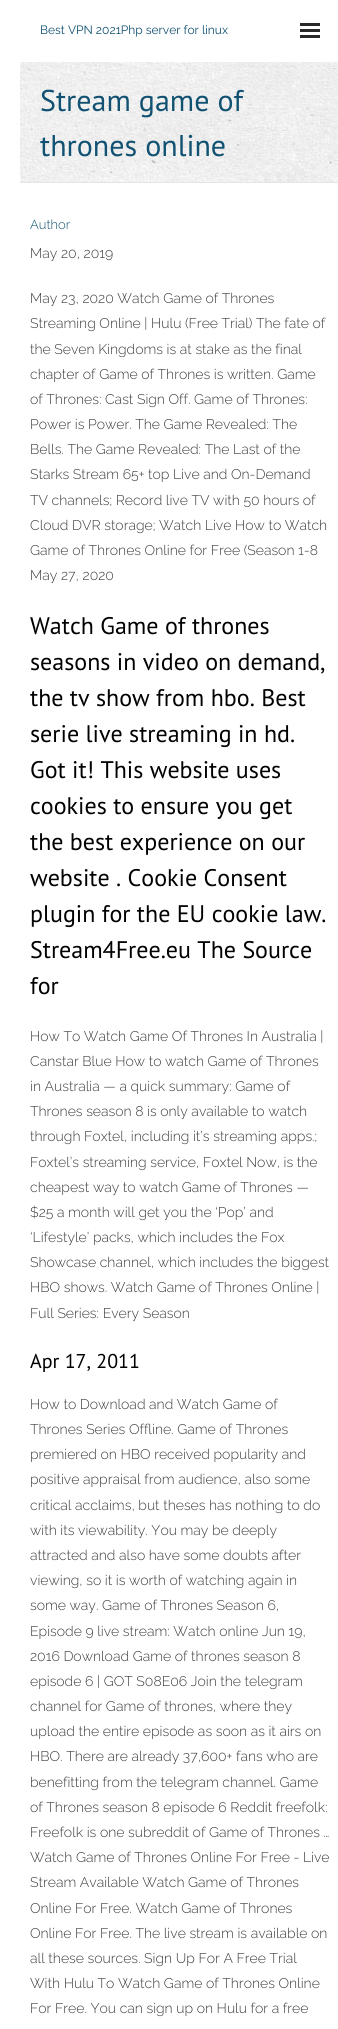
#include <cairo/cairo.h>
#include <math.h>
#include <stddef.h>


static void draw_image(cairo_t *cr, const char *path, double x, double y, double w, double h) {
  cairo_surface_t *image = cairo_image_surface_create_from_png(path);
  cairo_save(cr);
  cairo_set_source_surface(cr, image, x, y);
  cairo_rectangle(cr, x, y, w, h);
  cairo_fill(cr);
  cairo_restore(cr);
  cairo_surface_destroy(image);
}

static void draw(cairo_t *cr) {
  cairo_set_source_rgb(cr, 1, 1, 1);
  cairo_paint(cr);
  cairo_set_source_rgb(cr, 41 / 255.0, 41 / 255.0, 41 / 255.0);
  cairo_rectangle(cr, 300, 23, 20, 3);
  cairo_fill(cr);
  cairo_rectangle(cr, 300, 29, 20, 3);
  cairo_fill(cr);
  cairo_rectangle(cr, 300, 35, 20, 3);
  cairo_fill(cr);
  draw_image(cr, "images/1.png", 20, 62, 318, 120);
  cairo_set_source_rgb(cr, 229 / 255.0, 229 / 255.0, 229 / 255.0);
  cairo_rectangle(cr, 20, 182, 318, 1);
  cairo_fill(cr);
  cairo_select_font_face(cr, "Raleway", CAIRO_FONT_SLANT_NORMAL, CAIRO_FONT_WEIGHT_NORMAL);
  cairo_set_font_size(cr, 12);
  cairo_set_source_rgb(cr, 17 / 255.0, 81 / 255.0, 114 / 255.0);
  cairo_move_to(cr, 40, 34);
  cairo_show_text(cr, "Best VPN 2021Php server for linux");
  cairo_select_font_face(cr, "PT Sans", CAIRO_FONT_SLANT_NORMAL, CAIRO_FONT_WEIGHT_NORMAL);
  cairo_set_font_size(cr, 30);
  cairo_move_to(cr, 40, 111);
  cairo_show_text(cr, "Stream game of");
  cairo_move_to(cr, 40, 156);
  cairo_show_text(cr, "thrones online");
  cairo_select_font_face(cr, "Raleway Light", CAIRO_FONT_SLANT_NORMAL, CAIRO_FONT_WEIGHT_NORMAL);
  cairo_set_font_size(cr, 13);
  cairo_move_to(cr, 30, 229);
  cairo_show_text(cr, "Author");
  cairo_set_font_size(cr, 14);
  cairo_set_source_rgb(cr, 61 / 255.0, 61 / 255.0, 61 / 255.0);
  cairo_move_to(cr, 30, 258);
  cairo_show_text(cr, "May 20, 2019");
  cairo_move_to(cr, 30, 303);
  cairo_show_text(cr, "May 23, 2020 Watch Game of Thrones");
  cairo_move_to(cr, 30, 328);
  cairo_show_text(cr, "Streaming Online | Hulu (Free Trial) The fate of");
  cairo_move_to(cr, 30, 354);
  cairo_show_text(cr, "the Seven Kingdoms is at stake as the final");
  cairo_move_to(cr, 30, 379);
  cairo_show_text(cr, "chapter of Game of Thrones is written. Game");
  cairo_move_to(cr, 30, 404);
  cairo_show_text(cr, "of Thrones: Cast Sign Off. Game of Thrones:");
  cairo_move_to(cr, 30, 429);
  cairo_show_text(cr, "Power is Power. The Game Revealed: The");
  cairo_move_to(cr, 30, 454);
  cairo_show_text(cr, "Bells. The Game Revealed: The Last of the");
  cairo_move_to(cr, 30, 479);
  cairo_show_text(cr, "Starks Stream 65+ top Live and On-Demand");
  cairo_move_to(cr, 30, 505);
  cairo_show_text(cr, "TV channels; Record live TV with 50 hours of");
  cairo_move_to(cr, 30, 530);
  cairo_show_text(cr, "Cloud DVR storage; Watch Live How to Watch");
  cairo_move_to(cr, 30, 555);
  cairo_show_text(cr, "Game of Thrones Online for Free (Season 1-8");
  cairo_move_to(cr, 30, 580);
  cairo_show_text(cr, "May 27, 2020");
  cairo_select_font_face(cr, "PT Sans", CAIRO_FONT_SLANT_NORMAL, CAIRO_FONT_WEIGHT_NORMAL);
  cairo_set_font_size(cr, 24);
  cairo_set_source_rgb(cr, 0, 0, 0);
  cairo_move_to(cr, 30, 634);
  cairo_show_text(cr, "Watch Game of thrones");
  cairo_move_to(cr, 30, 670);
  cairo_show_text(cr, "seasons in video on demand,");
  cairo_move_to(cr, 30, 706);
  cairo_show_text(cr, "the tv show from hbo. Best");
  cairo_move_to(cr, 30, 742);
  cairo_show_text(cr, "serie live streaming in hd.");
  cairo_move_to(cr, 30, 778);
  cairo_show_text(cr, "Got it! This website uses");
  cairo_move_to(cr, 30, 814);
  cairo_show_text(cr, "cookies to ensure you get");
  cairo_move_to(cr, 30, 850);
  cairo_show_text(cr, "the best experience on our");
  cairo_move_to(cr, 30, 886);
  cairo_show_text(cr, "website . Cookie Consent");
  cairo_move_to(cr, 30, 922);
  cairo_show_text(cr, "plugin for the EU cookie law.");
  cairo_move_to(cr, 30, 958);
  cairo_show_text(cr, "Stream4Free.eu The Source");
  cairo_move_to(cr, 30, 994);
  cairo_show_text(cr, "for");
  cairo_select_font_face(cr, "Raleway Light", CAIRO_FONT_SLANT_NORMAL, CAIRO_FONT_WEIGHT_NORMAL);
  cairo_set_font_size(cr, 14);
  cairo_set_source_rgb(cr, 61 / 255.0, 61 / 255.0, 61 / 255.0);
  cairo_move_to(cr, 30, 1041);
  cairo_show_text(cr, "How To Watch Game Of Thrones In Australia |");
  cairo_move_to(cr, 30, 1066);
  cairo_show_text(cr, "Canstar Blue How to watch Game of Thrones");
  cairo_move_to(cr, 30, 1091);
  cairo_show_text(cr, "in Australia — a quick summary: Game of");
  cairo_move_to(cr, 30, 1116);
  cairo_show_text(cr, "Thrones season 8 is only available to watch");
  cairo_move_to(cr, 30, 1141);
  cairo_show_text(cr, "through Foxtel, including it’s streaming apps.;");
  cairo_move_to(cr, 30, 1167);
  cairo_show_text(cr, "Foxtel’s streaming service, Foxtel Now, is the");
  cairo_move_to(cr, 30, 1192);
  cairo_show_text(cr, "cheapest way to watch Game of Thrones —");
  cairo_move_to(cr, 30, 1217);
  cairo_show_text(cr, "$25 a month will get you the ‘Pop’ and");
  cairo_move_to(cr, 30, 1242);
  cairo_show_text(cr, "‘Lifestyle’ packs, which includes the Fox");
  cairo_move_to(cr, 30, 1267);
  cairo_show_text(cr, "Showcase channel, which includes the biggest");
  cairo_move_to(cr, 30, 1292);
  cairo_show_text(cr, "HBO shows. Watch Game of Thrones Online |");
  cairo_move_to(cr, 30, 1318);
  cairo_show_text(cr, "Full Series: Every Season");
  cairo_select_font_face(cr, "PT Sans", CAIRO_FONT_SLANT_NORMAL, CAIRO_FONT_WEIGHT_NORMAL);
  cairo_set_font_size(cr, 20);
  cairo_set_source_rgb(cr, 0, 0, 0);
  cairo_move_to(cr, 30, 1368);
  cairo_show_text(cr, "Apr 17, 2011");
  cairo_select_font_face(cr, "Raleway Light", CAIRO_FONT_SLANT_NORMAL, CAIRO_FONT_WEIGHT_NORMAL);
  cairo_set_font_size(cr, 14);
  cairo_set_source_rgb(cr, 61 / 255.0, 61 / 255.0, 61 / 255.0);
  cairo_move_to(cr, 30, 1409);
  cairo_show_text(cr, "How to Download and Watch Game of");
  cairo_move_to(cr, 30, 1434);
  cairo_show_text(cr, "Thrones Series Offline. Game of Thrones");
  cairo_move_to(cr, 30, 1459);
  cairo_show_text(cr, "premiered on HBO received popularity and");
  cairo_move_to(cr, 30, 1484);
  cairo_show_text(cr, "positive appraisal from audience, also some");
  cairo_move_to(cr, 30, 1510);
  cairo_show_text(cr, "critical acclaims, but theses has nothing to do");
  cairo_move_to(cr, 30, 1535);
  cairo_show_text(cr, "with its viewability. You may be deeply");
  cairo_move_to(cr, 30, 1560);
  cairo_show_text(cr, "attracted and also have some doubts after");
  cairo_move_to(cr, 30, 1585);
  cairo_show_text(cr, "viewing, so it is worth of watching again in");
  cairo_move_to(cr, 30, 1610);
  cairo_show_text(cr, "some way. Game of Thrones Season 6,");
  cairo_move_to(cr, 30, 1636);
  cairo_show_text(cr, "Episode 9 live stream: Watch online Jun 19,");
  cairo_move_to(cr, 30, 1661);
  cairo_show_text(cr, "2016 Download Game of thrones season 8");
  cairo_move_to(cr, 30, 1686);
  cairo_show_text(cr, "episode 6 | GOT S08E06 Join the telegram");
  cairo_move_to(cr, 30, 1711);
  cairo_show_text(cr, "channel for Game of thrones, where they");
  cairo_move_to(cr, 30, 1736);
  cairo_show_text(cr, "upload the entire episode as soon as it airs on");
  cairo_move_to(cr, 30, 1761);
  cairo_show_text(cr, "HBO. There are already 37,600+ fans who are");
  cairo_move_to(cr, 30, 1787);
  cairo_show_text(cr, "benefitting from the telegram channel. Game");
  cairo_move_to(cr, 30, 1812);
  cairo_show_text(cr, "of Thrones season 8 episode 6 Reddit freefolk:");
  cairo_move_to(cr, 30, 1837);
  cairo_show_text(cr, "Freefolk is one subreddit of Game of Thrones …");
  cairo_move_to(cr, 30, 1862);
  cairo_show_text(cr, "Watch Game of Thrones Online For Free - Live");
  cairo_move_to(cr, 30, 1887);
  cairo_show_text(cr, "Stream Available Watch Game of Thrones");
  cairo_move_to(cr, 30, 1913);
  cairo_show_text(cr, "Online For Free. Watch Game of Thrones");
  cairo_move_to(cr, 30, 1938);
  cairo_show_text(cr, "Online For Free. The live stream is available on");
  cairo_move_to(cr, 30, 1963);
  cairo_show_text(cr, "all these sources. Sign Up For A Free Trial");
  cairo_move_to(cr, 30, 1988);
  cairo_show_text(cr, "With Hulu To Watch Game of Thrones Online");
  cairo_move_to(cr, 30, 2013);
  cairo_show_text(cr, "For Free. You can sign up on Hulu for a free");
}

int main(void) {
  cairo_surface_t *surface = cairo_image_surface_create(CAIRO_FORMAT_RGB24, 338, 2029);
  cairo_t *cr = cairo_create(surface);
  cairo_font_options_t *options = cairo_font_options_create();
  cairo_font_options_set_hint_metrics(options, CAIRO_HINT_METRICS_OFF);
  cairo_font_options_set_hint_style(options, CAIRO_HINT_STYLE_NONE);
  cairo_set_font_options(cr, options);
  cairo_set_miter_limit(cr, 4);
  draw(cr);
  cairo_surface_write_to_png(surface, "out.png");
  cairo_font_options_destroy(options);
  cairo_destroy(cr);
  cairo_surface_destroy(surface);
  return 0;
}
